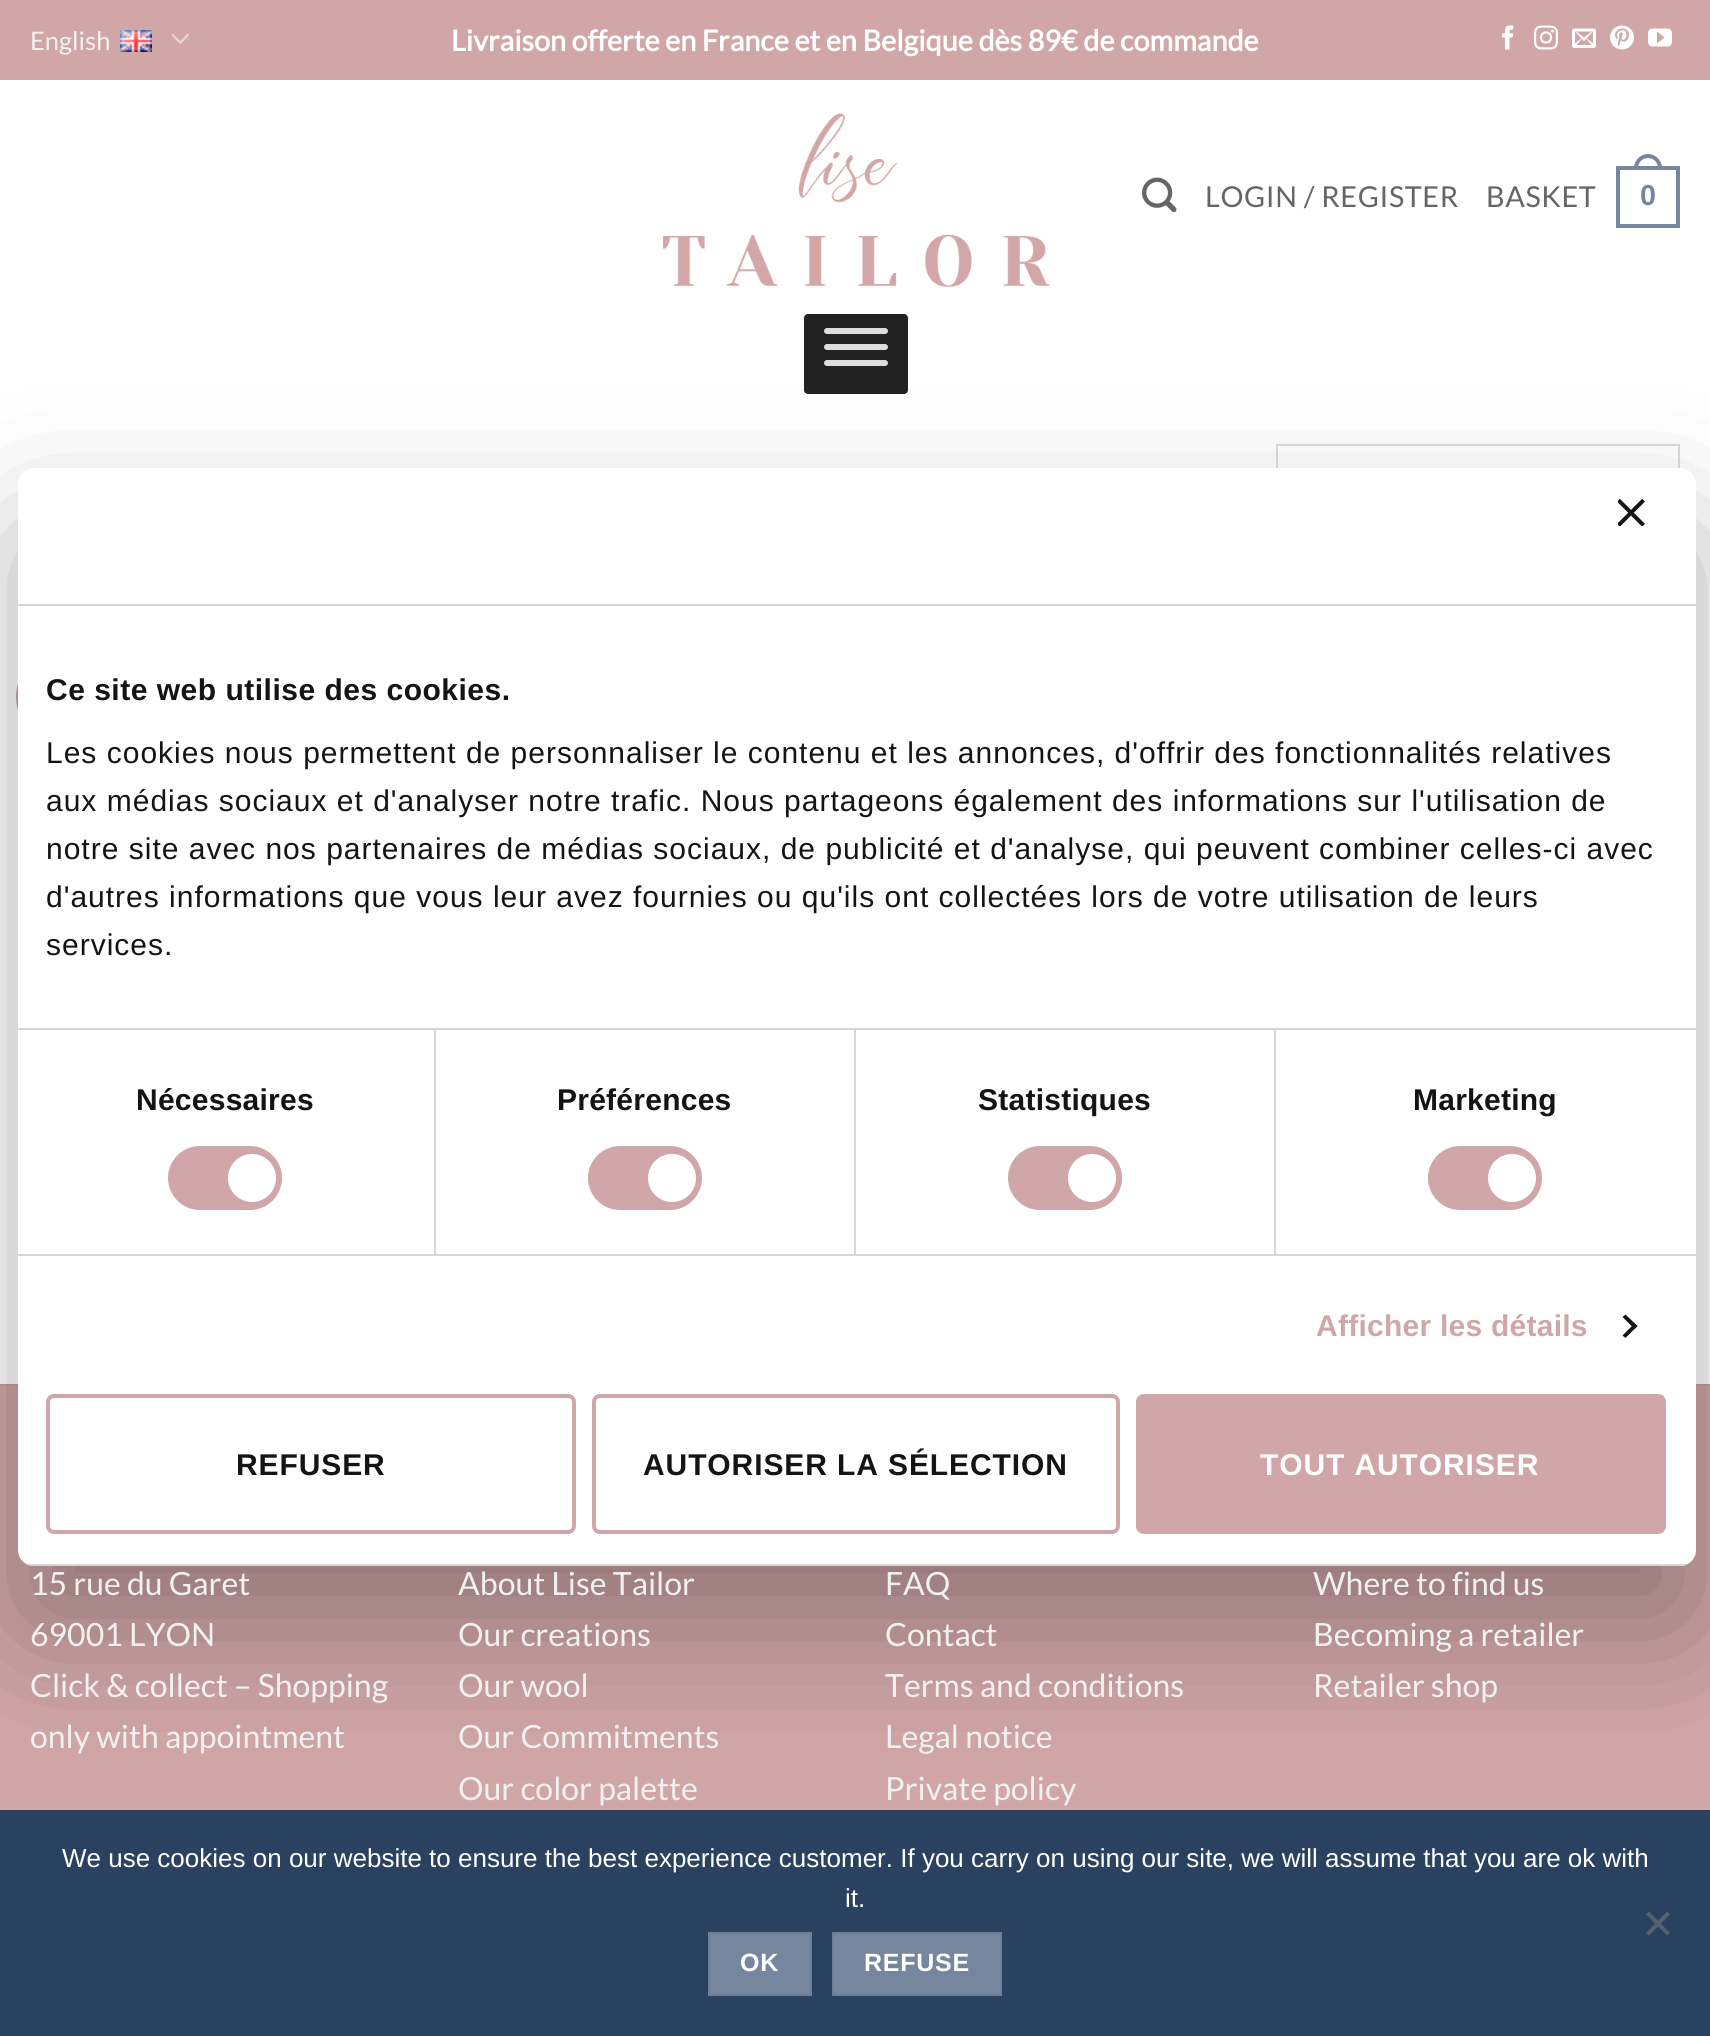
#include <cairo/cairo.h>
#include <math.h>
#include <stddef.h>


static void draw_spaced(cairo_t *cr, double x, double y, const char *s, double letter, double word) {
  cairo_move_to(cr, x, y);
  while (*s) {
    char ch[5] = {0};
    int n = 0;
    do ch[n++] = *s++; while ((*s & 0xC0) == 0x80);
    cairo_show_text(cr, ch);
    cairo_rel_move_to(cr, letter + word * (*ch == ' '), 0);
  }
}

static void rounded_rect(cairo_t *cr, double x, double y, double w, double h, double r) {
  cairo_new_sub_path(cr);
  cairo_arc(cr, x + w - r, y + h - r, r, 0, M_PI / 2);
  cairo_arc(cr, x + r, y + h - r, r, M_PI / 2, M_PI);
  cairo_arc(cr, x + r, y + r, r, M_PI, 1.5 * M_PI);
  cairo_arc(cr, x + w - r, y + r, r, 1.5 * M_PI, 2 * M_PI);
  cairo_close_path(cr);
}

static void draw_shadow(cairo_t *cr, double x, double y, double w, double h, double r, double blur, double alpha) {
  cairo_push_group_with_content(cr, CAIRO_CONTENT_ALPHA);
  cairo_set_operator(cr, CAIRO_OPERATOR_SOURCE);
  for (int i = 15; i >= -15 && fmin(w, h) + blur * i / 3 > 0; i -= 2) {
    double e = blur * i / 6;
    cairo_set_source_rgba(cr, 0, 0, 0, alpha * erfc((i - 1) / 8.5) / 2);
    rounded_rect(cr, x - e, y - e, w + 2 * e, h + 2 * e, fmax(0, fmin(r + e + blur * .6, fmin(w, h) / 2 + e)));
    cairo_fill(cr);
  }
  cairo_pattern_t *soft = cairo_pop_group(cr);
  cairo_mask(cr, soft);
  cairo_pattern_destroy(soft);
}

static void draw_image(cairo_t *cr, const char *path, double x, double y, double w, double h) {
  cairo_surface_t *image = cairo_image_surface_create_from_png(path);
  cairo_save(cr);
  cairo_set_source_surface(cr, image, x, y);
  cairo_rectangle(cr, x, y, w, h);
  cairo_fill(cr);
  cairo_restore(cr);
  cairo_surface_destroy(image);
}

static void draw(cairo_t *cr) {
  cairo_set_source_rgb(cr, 1, 1, 1);
  cairo_paint(cr);
  cairo_set_source_rgb(cr, 209 / 255.0, 166 / 255.0, 167 / 255.0);
  cairo_rectangle(cr, 0, 0, 1710, 80);
  cairo_fill(cr);
  draw_image(cr, "images/1.png", 120, 30, 32, 22);
  draw_image(cr, "images/2.png", 171, 33, 18, 11);
  draw_image(cr, "images/3.png", 1502, 25, 12, 25);
  draw_image(cr, "images/4.png", 1534, 25, 24, 25);
  draw_image(cr, "images/5.png", 1572, 28, 24, 20);
  draw_image(cr, "images/6.png", 1610, 25, 24, 25);
  draw_image(cr, "images/7.png", 1648, 28, 24, 19);
  draw_image(cr, "images/8.png", 662, 113, 388, 175);
  draw_image(cr, "images/9.png", 1142, 177, 35, 36);
  cairo_rectangle(cr, 1618, 168, 60, 58);
  cairo_set_source_rgb(cr, 118 / 255.0, 134 / 255.0, 159 / 255.0);
  cairo_set_line_width(cr, 4);
  cairo_stroke(cr);
  cairo_set_fill_rule(cr, CAIRO_FILL_RULE_EVEN_ODD);
  cairo_new_path(cr);
  cairo_move_to(cr, 1648, 154);
  cairo_curve_to(cr, 1655.5, 154, 1662, 160.5, 1662, 168);
  cairo_line_to(cr, 1662, 170);
  cairo_line_to(cr, 1634, 170);
  cairo_line_to(cr, 1634, 168);
  cairo_curve_to(cr, 1634, 160.5, 1640.5, 154, 1648, 154);
  cairo_close_path(cr);
  cairo_move_to(cr, 1648, 158);
  cairo_curve_to(cr, 1653.5, 158, 1658, 162.5, 1658, 168);
  cairo_line_to(cr, 1658, 170);
  cairo_line_to(cr, 1638, 170);
  cairo_line_to(cr, 1638, 168);
  cairo_curve_to(cr, 1638, 162.5, 1642.5, 158, 1648, 158);
  cairo_close_path(cr);
  cairo_fill(cr);
  cairo_set_source_rgb(cr, 34 / 255.0, 34 / 255.0, 34 / 255.0);
  rounded_rect(cr, 804, 314, 104, 80, 4);
  cairo_fill(cr);
  cairo_set_source_rgb(cr, 221 / 255.0, 221 / 255.0, 221 / 255.0);
  rounded_rect(cr, 824, 328, 64, 6, 3);
  cairo_fill(cr);
  rounded_rect(cr, 824, 344, 64, 6, 3);
  cairo_fill(cr);
  rounded_rect(cr, 824, 360, 64, 6, 3);
  cairo_fill(cr);
  cairo_rectangle(cr, 1277, 445, 402, 76);
  cairo_set_line_width(cr, 2);
  cairo_stroke(cr);
  cairo_set_source_rgb(cr, 209 / 255.0, 166 / 255.0, 167 / 255.0);
  cairo_arc(cr, 61, 697, 45, 0, 2 * M_PI);
  cairo_fill(cr);
  cairo_rectangle(cr, 0, 1386, 1710, 424);
  cairo_fill(cr);
  cairo_set_source_rgb(cr, 199 / 255.0, 158 / 255.0, 159 / 255.0);
  cairo_rectangle(cr, 0, 1384, 1710, 2);
  cairo_fill(cr);
  cairo_set_source_rgb(cr, 42 / 255.0, 65 / 255.0, 96 / 255.0);
  cairo_rectangle(cr, 0, 1810, 1710, 226);
  cairo_fill(cr);
  cairo_set_source_rgb(cr, 0, 0, 0);
  draw_shadow(cr, 18, 532, 1678, 1098, 16, 68, 0.3);
  cairo_set_source_rgb(cr, 1, 1, 1);
  rounded_rect(cr, 18, 468, 1678, 1098, 16);
  cairo_fill(cr);
  cairo_set_source_rgb(cr, 214 / 255.0, 214 / 255.0, 214 / 255.0);
  cairo_rectangle(cr, 18, 604, 1678, 2);
  cairo_fill(cr);
  draw_image(cr, "images/10.png", 1618, 498, 27, 28);
  cairo_rectangle(cr, 18, 1028, 1678, 2);
  cairo_fill(cr);
  cairo_rectangle(cr, 18, 1254, 1678, 2);
  cairo_fill(cr);
  cairo_rectangle(cr, 434, 1030, 2, 224);
  cairo_fill(cr);
  cairo_set_source_rgb(cr, 208 / 255.0, 166 / 255.0, 168 / 255.0);
  rounded_rect(cr, 168, 1146, 114, 64, 32);
  cairo_fill(cr);
  cairo_set_source_rgb(cr, 1, 1, 1);
  cairo_arc(cr, 252, 1178, 24, 0, 2 * M_PI);
  cairo_fill(cr);
  cairo_set_source_rgb(cr, 214 / 255.0, 214 / 255.0, 214 / 255.0);
  cairo_rectangle(cr, 854, 1030, 2, 224);
  cairo_fill(cr);
  cairo_set_source_rgb(cr, 208 / 255.0, 166 / 255.0, 168 / 255.0);
  rounded_rect(cr, 588, 1146, 114, 64, 32);
  cairo_fill(cr);
  cairo_set_source_rgb(cr, 1, 1, 1);
  cairo_arc(cr, 672, 1178, 24, 0, 2 * M_PI);
  cairo_fill(cr);
  cairo_set_source_rgb(cr, 214 / 255.0, 214 / 255.0, 214 / 255.0);
  cairo_rectangle(cr, 1274, 1030, 2, 224);
  cairo_fill(cr);
  cairo_set_source_rgb(cr, 208 / 255.0, 166 / 255.0, 168 / 255.0);
  rounded_rect(cr, 1008, 1146, 114, 64, 32);
  cairo_fill(cr);
  cairo_set_source_rgb(cr, 1, 1, 1);
  cairo_arc(cr, 1092, 1178, 24, 0, 2 * M_PI);
  cairo_fill(cr);
  cairo_set_source_rgb(cr, 208 / 255.0, 166 / 255.0, 168 / 255.0);
  rounded_rect(cr, 1428, 1146, 114, 64, 32);
  cairo_fill(cr);
  cairo_set_source_rgb(cr, 1, 1, 1);
  cairo_arc(cr, 1512, 1178, 24, 0, 2 * M_PI);
  cairo_fill(cr);
  cairo_set_source_rgb(cr, 20 / 255.0, 20 / 255.0, 20 / 255.0);
  cairo_set_fill_rule(cr, CAIRO_FILL_RULE_WINDING);
  cairo_new_path(cr);
  cairo_move_to(cr, 1625.5, 1314.5);
  cairo_line_to(cr, 1637.5, 1326);
  cairo_line_to(cr, 1634.5, 1329);
  cairo_line_to(cr, 1622.5, 1317);
  cairo_close_path(cr);
  cairo_fill(cr);
  cairo_new_path(cr);
  cairo_move_to(cr, 1634.5, 1323.5);
  cairo_line_to(cr, 1637.5, 1326);
  cairo_line_to(cr, 1625.5, 1338);
  cairo_line_to(cr, 1622.5, 1335.5);
  cairo_close_path(cr);
  cairo_fill(cr);
  cairo_save(cr);
  rounded_rect(cr, 18, 468, 1678, 1098, 16);
  cairo_clip(cr);
  cairo_set_source_rgb(cr, 214 / 255.0, 214 / 255.0, 214 / 255.0);
  cairo_rectangle(cr, 18, 1564, 1678, 2);
  cairo_fill(cr);
  cairo_restore(cr);
  rounded_rect(cr, 48, 1396, 526, 136, 6);
  cairo_set_source_rgb(cr, 208 / 255.0, 166 / 255.0, 168 / 255.0);
  cairo_set_line_width(cr, 4);
  cairo_stroke(cr);
  rounded_rect(cr, 594, 1396, 524, 136, 6);
  cairo_stroke(cr);
  rounded_rect(cr, 1138, 1396, 526, 136, 6);
  cairo_fill_preserve(cr);
  cairo_stroke(cr);
  cairo_set_source_rgb(cr, 85 / 255.0, 97 / 255.0, 112 / 255.0);
  cairo_new_path(cr);
  cairo_move_to(cr, 1667, 1911.5);
  cairo_line_to(cr, 1670, 1914.5);
  cairo_line_to(cr, 1649, 1935.5);
  cairo_line_to(cr, 1646, 1933);
  cairo_close_path(cr);
  cairo_fill(cr);
  cairo_new_path(cr);
  cairo_move_to(cr, 1646, 1914.5);
  cairo_line_to(cr, 1649, 1911.5);
  cairo_line_to(cr, 1670, 1933);
  cairo_line_to(cr, 1667, 1935.5);
  cairo_close_path(cr);
  cairo_fill(cr);
  cairo_set_source_rgb(cr, 118 / 255.0, 134 / 255.0, 159 / 255.0);
  cairo_rectangle(cr, 709, 1933, 102, 62);
  cairo_fill_preserve(cr);
  cairo_set_source_rgb(cr, 112 / 255.0, 127 / 255.0, 151 / 255.0);
  cairo_set_line_width(cr, 2);
  cairo_stroke(cr);
  cairo_set_source_rgb(cr, 118 / 255.0, 134 / 255.0, 159 / 255.0);
  cairo_rectangle(cr, 833, 1933, 168, 62);
  cairo_fill_preserve(cr);
  cairo_set_source_rgb(cr, 112 / 255.0, 127 / 255.0, 151 / 255.0);
  cairo_stroke(cr);
  cairo_select_font_face(cr, "Lato", CAIRO_FONT_SLANT_NORMAL, CAIRO_FONT_WEIGHT_NORMAL);
  cairo_set_font_size(cr, 25.5);
  cairo_set_source_rgb(cr, 241 / 255.0, 241 / 255.0, 241 / 255.0);
  cairo_move_to(cr, 30, 50);
  cairo_show_text(cr, "English");
  cairo_select_font_face(cr, "Lato", CAIRO_FONT_SLANT_NORMAL, CAIRO_FONT_WEIGHT_BOLD);
  cairo_set_font_size(cr, 28.8);
  cairo_set_source_rgb(cr, 1, 1, 1);
  cairo_move_to(cr, 451, 51);
  cairo_show_text(cr, "Livraison offerte en France et en Belgique dès 89€ de commande");
  cairo_select_font_face(cr, "Lato", CAIRO_FONT_SLANT_NORMAL, CAIRO_FONT_WEIGHT_NORMAL);
  cairo_set_source_rgb(cr, 101 / 255.0, 101 / 255.0, 101 / 255.0);
  draw_spaced(cr, 1205, 207, "LOGIN / REGISTER", 0.6, 0);
  draw_spaced(cr, 1486, 207, "BASKET", 0.6, 0);
  cairo_select_font_face(cr, "Liberation Sans", CAIRO_FONT_SLANT_NORMAL, CAIRO_FONT_WEIGHT_BOLD);
  cairo_set_source_rgb(cr, 118 / 255.0, 134 / 255.0, 159 / 255.0);
  draw_spaced(cr, 1640, 205, "0", 0.6, 0);
  cairo_select_font_face(cr, "Lato", CAIRO_FONT_SLANT_NORMAL, CAIRO_FONT_WEIGHT_NORMAL);
  cairo_set_font_size(cr, 32);
  cairo_set_source_rgb(cr, 241 / 255.0, 241 / 255.0, 241 / 255.0);
  cairo_move_to(cr, 30, 1595);
  cairo_show_text(cr, "15 rue du Garet");
  cairo_move_to(cr, 30, 1646);
  cairo_show_text(cr, "69001 LYON");
  cairo_move_to(cr, 30, 1697);
  cairo_show_text(cr, "Click & collect – Shopping");
  cairo_move_to(cr, 30, 1748);
  cairo_show_text(cr, "only with appointment");
  cairo_move_to(cr, 458, 1595);
  cairo_show_text(cr, "About Lise Tailor");
  cairo_move_to(cr, 458, 1646);
  cairo_show_text(cr, "Our creations");
  cairo_move_to(cr, 458, 1697);
  cairo_show_text(cr, "Our wool");
  cairo_move_to(cr, 458, 1748);
  cairo_show_text(cr, "Our Commitments");
  cairo_move_to(cr, 458, 1800);
  cairo_show_text(cr, "Our color palette");
  cairo_move_to(cr, 885, 1595);
  cairo_show_text(cr, "FAQ");
  cairo_move_to(cr, 885, 1646);
  cairo_show_text(cr, "Contact");
  cairo_move_to(cr, 885, 1697);
  cairo_show_text(cr, "Terms and conditions");
  cairo_move_to(cr, 885, 1748);
  cairo_show_text(cr, "Legal notice");
  cairo_move_to(cr, 885, 1800);
  cairo_show_text(cr, "Private policy");
  cairo_move_to(cr, 1313, 1595);
  cairo_show_text(cr, "Where to find us");
  cairo_move_to(cr, 1313, 1646);
  cairo_show_text(cr, "Becoming a retailer");
  cairo_move_to(cr, 1313, 1697);
  cairo_show_text(cr, "Retailer shop");
  cairo_select_font_face(cr, "Liberation Sans", CAIRO_FONT_SLANT_NORMAL, CAIRO_FONT_WEIGHT_BOLD);
  cairo_set_font_size(cr, 30);
  cairo_set_source_rgb(cr, 20 / 255.0, 20 / 255.0, 20 / 255.0);
  draw_spaced(cr, 46, 700, "Ce site web utilise des cookies.", 0.5, 0);
  cairo_select_font_face(cr, "Liberation Sans", CAIRO_FONT_SLANT_NORMAL, CAIRO_FONT_WEIGHT_NORMAL);
  draw_spaced(cr, 46, 763, "Les cookies nous permettent de personnaliser le contenu et les annonces, d'offrir des fonctionnalités relatives", 1, 0);
  draw_spaced(cr, 46, 811, "aux médias sociaux et d'analyser notre trafic. Nous partageons également des informations sur l'utilisation de", 1, 0);
  draw_spaced(cr, 46, 859, "notre site avec nos partenaires de médias sociaux, de publicité et d'analyse, qui peuvent combiner celles-ci avec", 1, 0);
  draw_spaced(cr, 46, 907, "d'autres informations que vous leur avez fournies ou qu'ils ont collectées lors de votre utilisation de leurs", 1, 0);
  draw_spaced(cr, 46, 955, "services.", 1, 0);
  cairo_select_font_face(cr, "Liberation Sans", CAIRO_FONT_SLANT_NORMAL, CAIRO_FONT_WEIGHT_BOLD);
  draw_spaced(cr, 136, 1110, "Nécessaires", 0.25, 0);
  draw_spaced(cr, 557, 1110, "Préférences", 0.25, 0);
  draw_spaced(cr, 978, 1110, "Statistiques", 0.25, 0);
  draw_spaced(cr, 1413, 1110, "Marketing", 0.25, 0);
  cairo_set_source_rgb(cr, 208 / 255.0, 166 / 255.0, 168 / 255.0);
  draw_spaced(cr, 1316, 1336, "Afficher les détails", 0.25, 0);
  cairo_set_source_rgb(cr, 20 / 255.0, 20 / 255.0, 20 / 255.0);
  draw_spaced(cr, 236, 1475, "REFUSER", 0.9, 0);
  draw_spaced(cr, 643, 1475, "AUTORISER LA SÉLECTION", 0.9, 0);
  cairo_set_source_rgb(cr, 1, 1, 1);
  draw_spaced(cr, 1260, 1475, "TOUT AUTORISER", 0.9, 0);
  cairo_select_font_face(cr, "Liberation Sans", CAIRO_FONT_SLANT_NORMAL, CAIRO_FONT_WEIGHT_NORMAL);
  cairo_set_font_size(cr, 26);
  cairo_move_to(cr, 62, 1867);
  cairo_show_text(cr, "We use cookies on our website to ensure the best experience customer. If you carry on using our site, we will assume that you are ok with");
  cairo_move_to(cr, 845, 1907);
  cairo_show_text(cr, "it.");
  cairo_select_font_face(cr, "Liberation Sans", CAIRO_FONT_SLANT_NORMAL, CAIRO_FONT_WEIGHT_BOLD);
  cairo_set_font_size(cr, 25);
  draw_spaced(cr, 740, 1971, "OK", 0.75, 0);
  draw_spaced(cr, 864, 1971, "REFUSE", 0.75, 0);
}

int main(void) {
  cairo_surface_t *surface = cairo_image_surface_create(CAIRO_FORMAT_RGB24, 1710, 2036);
  cairo_t *cr = cairo_create(surface);
  cairo_font_options_t *options = cairo_font_options_create();
  cairo_font_options_set_hint_metrics(options, CAIRO_HINT_METRICS_OFF);
  cairo_font_options_set_hint_style(options, CAIRO_HINT_STYLE_NONE);
  cairo_set_font_options(cr, options);
  cairo_set_miter_limit(cr, 4);
  draw(cr);
  cairo_surface_write_to_png(surface, "out.png");
  cairo_font_options_destroy(options);
  cairo_destroy(cr);
  cairo_surface_destroy(surface);
  return 0;
}
